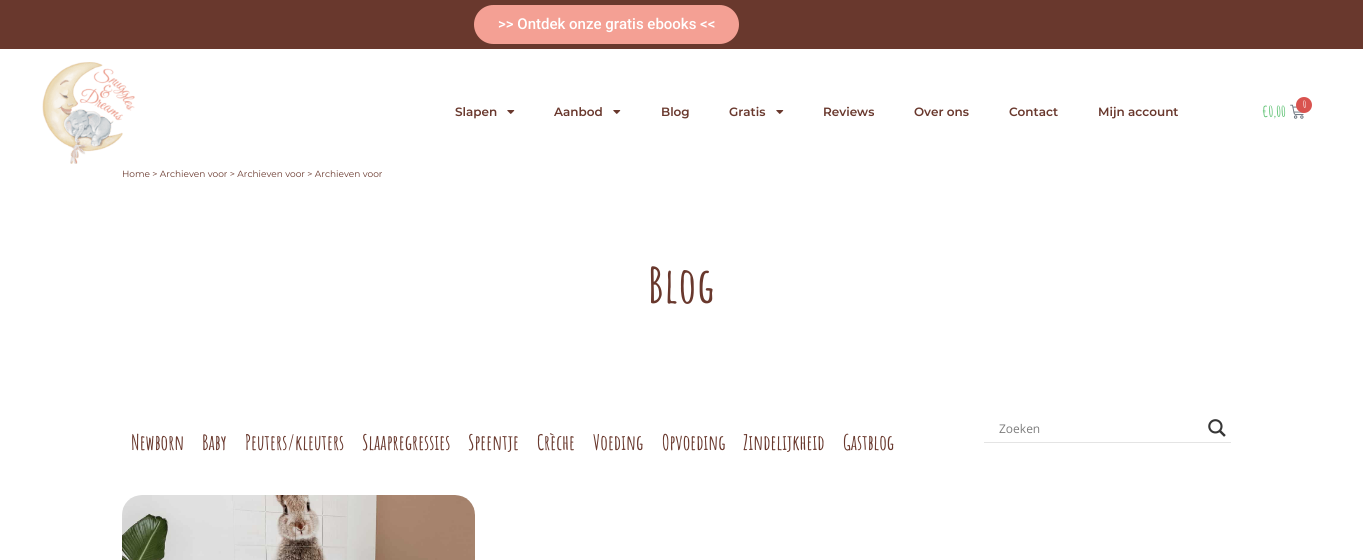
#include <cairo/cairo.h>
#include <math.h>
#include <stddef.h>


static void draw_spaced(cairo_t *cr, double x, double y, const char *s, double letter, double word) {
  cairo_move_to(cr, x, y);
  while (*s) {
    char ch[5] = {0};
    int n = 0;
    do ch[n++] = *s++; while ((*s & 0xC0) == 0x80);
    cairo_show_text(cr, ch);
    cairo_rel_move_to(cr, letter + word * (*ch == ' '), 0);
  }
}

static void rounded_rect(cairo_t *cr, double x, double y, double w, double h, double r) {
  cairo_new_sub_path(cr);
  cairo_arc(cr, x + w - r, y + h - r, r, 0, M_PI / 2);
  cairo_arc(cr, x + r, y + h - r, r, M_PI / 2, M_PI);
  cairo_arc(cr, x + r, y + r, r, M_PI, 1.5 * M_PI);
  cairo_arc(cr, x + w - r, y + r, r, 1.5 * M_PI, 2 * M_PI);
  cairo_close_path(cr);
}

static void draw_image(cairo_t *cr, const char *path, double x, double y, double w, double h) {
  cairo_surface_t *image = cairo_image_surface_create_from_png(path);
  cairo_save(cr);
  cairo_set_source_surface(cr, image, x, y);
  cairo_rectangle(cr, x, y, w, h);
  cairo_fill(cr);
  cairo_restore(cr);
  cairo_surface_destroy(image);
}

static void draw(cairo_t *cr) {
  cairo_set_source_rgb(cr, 1, 1, 1);
  cairo_paint(cr);
  cairo_set_source_rgb(cr, 105 / 255.0, 56 / 255.0, 45 / 255.0);
  cairo_rectangle(cr, 0, 0, 1363, 49);
  cairo_fill(cr);
  cairo_set_source_rgb(cr, 244 / 255.0, 160 / 255.0, 148 / 255.0);
  rounded_rect(cr, 474, 5, 265, 39, 19.5);
  cairo_fill(cr);
  draw_image(cr, "images/1.png", 42, 62, 93, 102);
  draw_image(cr, "images/2.png", 507, 110, 8, 4);
  draw_image(cr, "images/2.png", 613, 110, 8, 4);
  draw_image(cr, "images/2.png", 776, 110, 8, 4);
  draw_image(cr, "images/3.png", 1290, 104, 14, 15);
  cairo_set_source_rgb(cr, 217 / 255.0, 83 / 255.0, 79 / 255.0);
  cairo_arc(cr, 1304, 105, 8, 0, 2 * M_PI);
  cairo_fill(cr);
  cairo_set_source_rgb(cr, 228 / 255.0, 228 / 255.0, 228 / 255.0);
  cairo_rectangle(cr, 984, 442, 247, 1);
  cairo_fill(cr);
  draw_image(cr, "images/4.png", 1208, 419, 18, 18);
  draw_image(cr, "images/5.png", 122, 495, 353, 65);
  cairo_select_font_face(cr, "Roboto Medium", CAIRO_FONT_SLANT_NORMAL, CAIRO_FONT_WEIGHT_NORMAL);
  cairo_set_font_size(cr, 15);
  cairo_set_source_rgb(cr, 1, 1, 1);
  cairo_move_to(cr, 498, 29);
  cairo_show_text(cr, ">> Ontdek onze gratis ebooks <<");
  cairo_select_font_face(cr, "Montserrat SemiBold", CAIRO_FONT_SLANT_NORMAL, CAIRO_FONT_WEIGHT_NORMAL);
  cairo_set_font_size(cr, 12);
  cairo_set_source_rgb(cr, 105 / 255.0, 56 / 255.0, 45 / 255.0);
  cairo_move_to(cr, 455, 116);
  cairo_show_text(cr, "Slapen");
  cairo_move_to(cr, 554, 116);
  cairo_show_text(cr, "Aanbod");
  cairo_move_to(cr, 661, 116);
  cairo_show_text(cr, "Blog");
  cairo_move_to(cr, 729, 116);
  cairo_show_text(cr, "Gratis");
  cairo_move_to(cr, 823, 116);
  cairo_show_text(cr, "Reviews");
  cairo_move_to(cr, 914, 116);
  cairo_show_text(cr, "Over ons");
  cairo_move_to(cr, 1009, 116);
  cairo_show_text(cr, "Contact");
  cairo_move_to(cr, 1098, 116);
  cairo_show_text(cr, "Mijn account");
  cairo_select_font_face(cr, "Amatic SC", CAIRO_FONT_SLANT_NORMAL, CAIRO_FONT_WEIGHT_BOLD);
  cairo_set_font_size(cr, 10);
  cairo_set_source_rgb(cr, 1, 1, 1);
  cairo_move_to(cr, 1303, 108);
  cairo_show_text(cr, "0");
  cairo_set_font_size(cr, 15);
  cairo_set_source_rgb(cr, 87 / 255.0, 191 / 255.0, 109 / 255.0);
  cairo_move_to(cr, 1262, 117);
  cairo_show_text(cr, "€0,00");
  cairo_select_font_face(cr, "Montserrat", CAIRO_FONT_SLANT_NORMAL, CAIRO_FONT_WEIGHT_NORMAL);
  cairo_set_font_size(cr, 9);
  cairo_set_source_rgb(cr, 105 / 255.0, 56 / 255.0, 45 / 255.0);
  cairo_move_to(cr, 122, 177);
  cairo_show_text(cr, "Home > Archieven voor > Archieven voor > Archieven voor");
  cairo_select_font_face(cr, "Amatic SC", CAIRO_FONT_SLANT_NORMAL, CAIRO_FONT_WEIGHT_BOLD);
  cairo_set_font_size(cr, 49);
  draw_spaced(cr, 648, 303, "Blog", 1, 0);
  cairo_select_font_face(cr, "Open Sans", CAIRO_FONT_SLANT_NORMAL, CAIRO_FONT_WEIGHT_NORMAL);
  cairo_set_font_size(cr, 12);
  cairo_set_source_rgb(cr, 125 / 255.0, 125 / 255.0, 125 / 255.0);
  cairo_move_to(cr, 999, 433);
  cairo_show_text(cr, "Zoeken");
  cairo_select_font_face(cr, "Amatic SC", CAIRO_FONT_SLANT_NORMAL, CAIRO_FONT_WEIGHT_BOLD);
  cairo_set_font_size(cr, 21);
  cairo_set_source_rgb(cr, 105 / 255.0, 56 / 255.0, 45 / 255.0);
  cairo_move_to(cr, 131, 450);
  cairo_show_text(cr, "Newborn");
  cairo_move_to(cr, 202, 450);
  cairo_show_text(cr, "Baby");
  cairo_move_to(cr, 245, 450);
  cairo_show_text(cr, "Peuters/kleuters");
  cairo_move_to(cr, 362, 450);
  cairo_show_text(cr, "Slaapregressies");
  cairo_move_to(cr, 468, 450);
  cairo_show_text(cr, "Speentje");
  cairo_move_to(cr, 537, 450);
  cairo_show_text(cr, "Crèche");
  cairo_move_to(cr, 593, 450);
  cairo_show_text(cr, "Voeding");
  cairo_move_to(cr, 662, 450);
  cairo_show_text(cr, "Opvoeding");
  cairo_move_to(cr, 743, 450);
  cairo_show_text(cr, "Zindelijkheid");
  cairo_move_to(cr, 843, 450);
  cairo_show_text(cr, "Gastblog");
}

int main(void) {
  cairo_surface_t *surface = cairo_image_surface_create(CAIRO_FORMAT_RGB24, 1363, 560);
  cairo_t *cr = cairo_create(surface);
  cairo_font_options_t *options = cairo_font_options_create();
  cairo_font_options_set_hint_metrics(options, CAIRO_HINT_METRICS_OFF);
  cairo_font_options_set_hint_style(options, CAIRO_HINT_STYLE_NONE);
  cairo_set_font_options(cr, options);
  cairo_set_miter_limit(cr, 4);
  draw(cr);
  cairo_surface_write_to_png(surface, "out.png");
  cairo_font_options_destroy(options);
  cairo_destroy(cr);
  cairo_surface_destroy(surface);
  return 0;
}
